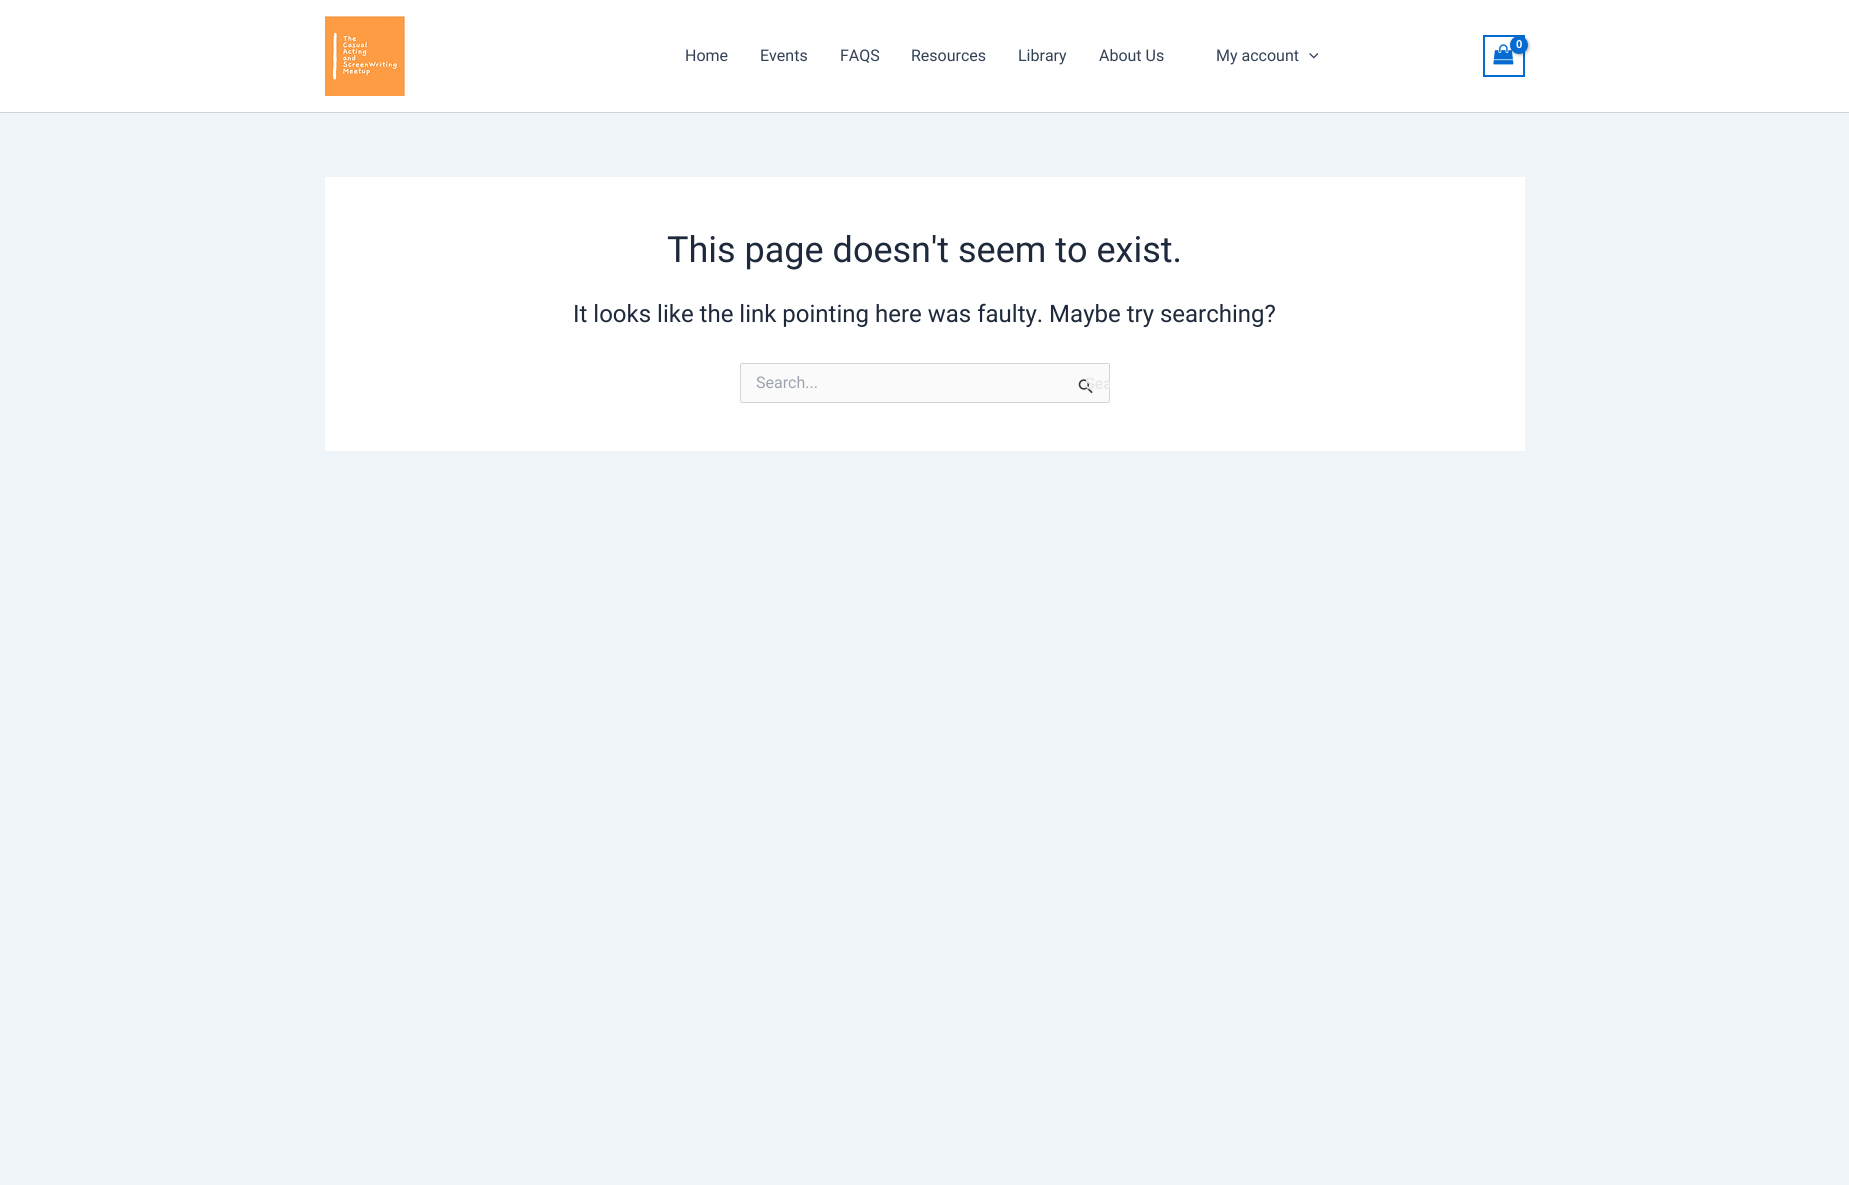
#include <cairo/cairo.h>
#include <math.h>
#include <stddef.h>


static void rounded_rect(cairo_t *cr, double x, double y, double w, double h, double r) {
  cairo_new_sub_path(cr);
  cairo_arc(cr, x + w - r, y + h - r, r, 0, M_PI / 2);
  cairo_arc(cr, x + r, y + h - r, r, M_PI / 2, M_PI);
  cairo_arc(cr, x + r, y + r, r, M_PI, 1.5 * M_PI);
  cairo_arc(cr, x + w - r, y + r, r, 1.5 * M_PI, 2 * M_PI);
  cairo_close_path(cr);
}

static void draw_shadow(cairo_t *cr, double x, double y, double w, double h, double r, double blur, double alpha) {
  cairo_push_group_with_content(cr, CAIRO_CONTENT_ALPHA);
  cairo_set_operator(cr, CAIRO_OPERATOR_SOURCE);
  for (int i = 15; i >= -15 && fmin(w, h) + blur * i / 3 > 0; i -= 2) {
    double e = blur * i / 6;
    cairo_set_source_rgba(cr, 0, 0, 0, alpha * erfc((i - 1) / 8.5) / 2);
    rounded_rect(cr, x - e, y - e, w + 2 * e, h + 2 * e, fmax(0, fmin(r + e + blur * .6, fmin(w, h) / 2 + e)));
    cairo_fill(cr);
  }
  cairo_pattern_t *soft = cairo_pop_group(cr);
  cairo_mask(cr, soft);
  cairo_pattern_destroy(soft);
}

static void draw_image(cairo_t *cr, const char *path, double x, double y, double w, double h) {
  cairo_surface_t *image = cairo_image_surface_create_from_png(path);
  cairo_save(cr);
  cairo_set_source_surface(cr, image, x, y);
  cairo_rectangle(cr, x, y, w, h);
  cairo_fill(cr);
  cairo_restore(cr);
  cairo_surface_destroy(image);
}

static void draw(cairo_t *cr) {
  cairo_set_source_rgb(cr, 240 / 255.0, 245 / 255.0, 250 / 255.0);
  cairo_paint(cr);
  cairo_set_source_rgb(cr, 1, 1, 1);
  cairo_rectangle(cr, 0, 0, 1849, 112);
  cairo_fill(cr);
  cairo_set_source_rgb(cr, 209 / 255.0, 213 / 255.0, 219 / 255.0);
  cairo_rectangle(cr, 0, 112, 1849, 1);
  cairo_fill(cr);
  draw_image(cr, "images/1.png", 325, 16, 80, 80);
  cairo_rectangle(cr, 1484, 36, 40, 40);
  cairo_set_source_rgb(cr, 4 / 255.0, 107 / 255.0, 210 / 255.0);
  cairo_stroke(cr);
  draw_image(cr, "images/2.png", 1493, 44, 21, 21);
  cairo_set_source_rgb(cr, 0, 0, 0);
  draw_shadow(cr, 1511, 37, 18, 18, 9, 1.5, 0.3);
  cairo_set_source_rgb(cr, 4 / 255.0, 107 / 255.0, 210 / 255.0);
  cairo_arc(cr, 1519, 45, 9, 0, 2 * M_PI);
  cairo_fill(cr);
  draw_image(cr, "images/3.png", 1309, 53, 10, 6);
  cairo_set_source_rgb(cr, 1, 1, 1);
  cairo_rectangle(cr, 325, 177, 1200, 274);
  cairo_fill(cr);
  cairo_set_source_rgb(cr, 250 / 255.0, 250 / 255.0, 250 / 255.0);
  rounded_rect(cr, 740.5, 363.5, 369, 39, 1.5);
  cairo_fill_preserve(cr);
  cairo_set_source_rgb(cr, 209 / 255.0, 213 / 255.0, 219 / 255.0);
  cairo_set_line_width(cr, 1);
  cairo_stroke(cr);
  draw_image(cr, "images/4.png", 1078, 379, 15, 15);
  cairo_select_font_face(cr, "Roboto", CAIRO_FONT_SLANT_NORMAL, CAIRO_FONT_WEIGHT_NORMAL);
  cairo_set_font_size(cr, 16);
  cairo_set_source_rgb(cr, 51 / 255.0, 65 / 255.0, 85 / 255.0);
  cairo_move_to(cr, 685, 61);
  cairo_show_text(cr, "Home");
  cairo_move_to(cr, 760, 61);
  cairo_show_text(cr, "Events");
  cairo_move_to(cr, 840, 61);
  cairo_show_text(cr, "FAQS");
  cairo_move_to(cr, 911, 61);
  cairo_show_text(cr, "Resources");
  cairo_move_to(cr, 1018, 61);
  cairo_show_text(cr, "Library");
  cairo_move_to(cr, 1099, 61);
  cairo_show_text(cr, "About Us");
  cairo_select_font_face(cr, "Roboto", CAIRO_FONT_SLANT_NORMAL, CAIRO_FONT_WEIGHT_BOLD);
  cairo_set_font_size(cr, 11);
  cairo_set_source_rgb(cr, 1, 1, 1);
  cairo_move_to(cr, 1516, 48);
  cairo_show_text(cr, "0");
  cairo_select_font_face(cr, "Roboto", CAIRO_FONT_SLANT_NORMAL, CAIRO_FONT_WEIGHT_NORMAL);
  cairo_set_font_size(cr, 16);
  cairo_set_source_rgb(cr, 51 / 255.0, 65 / 255.0, 85 / 255.0);
  cairo_move_to(cr, 1216, 61);
  cairo_show_text(cr, "My account");
  cairo_set_font_size(cr, 36);
  cairo_set_source_rgb(cr, 30 / 255.0, 41 / 255.0, 59 / 255.0);
  cairo_move_to(cr, 667, 262);
  cairo_show_text(cr, "This page doesn't seem to exist.");
  cairo_set_font_size(cr, 24);
  cairo_move_to(cr, 573, 322);
  cairo_show_text(cr, "It looks like the link pointing here was faulty. Maybe try searching?");
  cairo_set_font_size(cr, 16);
  cairo_set_source_rgb(cr, 156 / 255.0, 163 / 255.0, 175 / 255.0);
  cairo_move_to(cr, 756, 388);
  cairo_show_text(cr, "Search...");
  cairo_save(cr);
  rounded_rect(cr, 1065, 363, 45, 42, 2);
  cairo_clip(cr);
  cairo_select_font_face(cr, "Roboto Medium", CAIRO_FONT_SLANT_NORMAL, CAIRO_FONT_WEIGHT_NORMAL);
  cairo_set_source_rgb(cr, 230 / 255.0, 231 / 255.0, 231 / 255.0);
  cairo_move_to(cr, 1085, 389);
  cairo_show_text(cr, "Sea");
  cairo_restore(cr);
}

int main(void) {
  cairo_surface_t *surface = cairo_image_surface_create(CAIRO_FORMAT_RGB24, 1849, 1185);
  cairo_t *cr = cairo_create(surface);
  cairo_font_options_t *options = cairo_font_options_create();
  cairo_font_options_set_hint_metrics(options, CAIRO_HINT_METRICS_OFF);
  cairo_font_options_set_hint_style(options, CAIRO_HINT_STYLE_NONE);
  cairo_set_font_options(cr, options);
  cairo_set_miter_limit(cr, 4);
  draw(cr);
  cairo_surface_write_to_png(surface, "out.png");
  cairo_font_options_destroy(options);
  cairo_destroy(cr);
  cairo_surface_destroy(surface);
  return 0;
}
